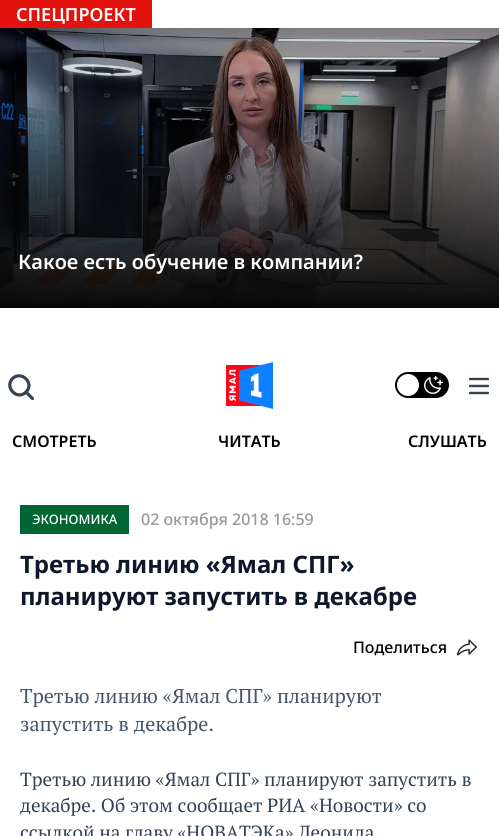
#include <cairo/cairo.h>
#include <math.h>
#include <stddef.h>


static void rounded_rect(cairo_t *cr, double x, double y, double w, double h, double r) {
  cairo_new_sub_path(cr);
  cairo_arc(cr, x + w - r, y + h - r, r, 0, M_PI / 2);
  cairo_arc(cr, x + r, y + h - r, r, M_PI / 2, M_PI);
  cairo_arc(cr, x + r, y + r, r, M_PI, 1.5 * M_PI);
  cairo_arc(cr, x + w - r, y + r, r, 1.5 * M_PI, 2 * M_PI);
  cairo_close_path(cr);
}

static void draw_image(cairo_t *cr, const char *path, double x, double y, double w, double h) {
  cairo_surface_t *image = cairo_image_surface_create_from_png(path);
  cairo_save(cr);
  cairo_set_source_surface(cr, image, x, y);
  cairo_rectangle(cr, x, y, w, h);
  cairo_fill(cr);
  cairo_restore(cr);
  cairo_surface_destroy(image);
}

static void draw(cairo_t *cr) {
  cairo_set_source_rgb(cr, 1, 1, 1);
  cairo_paint(cr);
  cairo_set_source_rgb(cr, 227 / 255.0, 18 / 255.0, 14 / 255.0);
  cairo_rectangle(cr, 0, 0, 152, 28);
  cairo_fill(cr);
  draw_image(cr, "images/1.png", 0, 28, 499, 280);
  cairo_new_path(cr);
  cairo_move_to(cr, 32.5, 398.5);
  cairo_line_to(cr, 26, 392);
  cairo_move_to(cr, 26, 392);
  cairo_curve_to(cr, 35, 383.5, 21.5, 370, 12.5, 378.5);
  cairo_curve_to(cr, 4, 387.5, 17.5, 401, 26, 392);
  cairo_close_path(cr);
  cairo_set_source_rgb(cr, 55 / 255.0, 65 / 255.0, 81 / 255.0);
  cairo_set_line_width(cr, 3.2);
  cairo_set_line_cap(cr, CAIRO_LINE_CAP_ROUND);
  cairo_set_line_join(cr, CAIRO_LINE_JOIN_ROUND);
  cairo_stroke(cr);
  draw_image(cr, "images/2.png", 226, 362, 47, 47);
  cairo_set_source_rgb(cr, 0, 0, 0);
  rounded_rect(cr, 395, 372, 54, 26, 13);
  cairo_fill(cr);
  cairo_set_source_rgb(cr, 1, 1, 1);
  cairo_arc(cr, 408, 385, 11, 0, 2 * M_PI);
  cairo_fill(cr);
  draw_image(cr, "images/3.png", 424, 376, 19, 18);
  cairo_save(cr);
  cairo_rectangle(cr, 469, 376, 20, 20);
  cairo_clip(cr);
  cairo_new_path(cr);
  cairo_move_to(cr, 470, 379);
  cairo_line_to(cr, 488, 379);
  cairo_move_to(cr, 470, 386);
  cairo_line_to(cr, 488, 386);
  cairo_move_to(cr, 470, 393);
  cairo_line_to(cr, 488, 393);
  cairo_set_source_rgb(cr, 55 / 255.0, 65 / 255.0, 81 / 255.0);
  cairo_set_line_width(cr, 2.4);
  cairo_stroke(cr);
  cairo_restore(cr);
  cairo_set_source_rgb(cr, 0, 102 / 255.0, 51 / 255.0);
  cairo_rectangle(cr, 20, 505, 109, 29);
  cairo_fill(cr);
  draw_image(cr, "images/4.png", 457, 639, 20, 17);
  cairo_select_font_face(cr, "Noto Sans SemiBold", CAIRO_FONT_SLANT_NORMAL, CAIRO_FONT_WEIGHT_NORMAL);
  cairo_set_font_size(cr, 18);
  cairo_set_source_rgb(cr, 1, 1, 1);
  cairo_move_to(cr, 16, 21);
  cairo_show_text(cr, "СПЕЦПРОЕКТ");
  cairo_set_font_size(cr, 20);
  cairo_move_to(cr, 18, 269);
  cairo_show_text(cr, "Какое есть обучение в компании?");
  cairo_set_font_size(cr, 16);
  cairo_set_source_rgb(cr, 0, 0, 0);
  cairo_move_to(cr, 12, 447);
  cairo_show_text(cr, "СМОТРЕТЬ");
  cairo_move_to(cr, 218, 447);
  cairo_show_text(cr, "ЧИТАТЬ");
  cairo_move_to(cr, 408, 447);
  cairo_show_text(cr, "СЛУШАТЬ");
  cairo_select_font_face(cr, "Noto Sans Medium", CAIRO_FONT_SLANT_NORMAL, CAIRO_FONT_WEIGHT_NORMAL);
  cairo_set_font_size(cr, 13);
  cairo_set_source_rgb(cr, 1, 1, 1);
  cairo_move_to(cr, 32, 524);
  cairo_show_text(cr, "ЭКОНОМИКА");
  cairo_set_font_size(cr, 16);
  cairo_set_source_rgb(cr, 153 / 255.0, 153 / 255.0, 153 / 255.0);
  cairo_move_to(cr, 141, 525);
  cairo_show_text(cr, "02 октября 2018 16:59");
  cairo_select_font_face(cr, "Noto Sans", CAIRO_FONT_SLANT_NORMAL, CAIRO_FONT_WEIGHT_BOLD);
  cairo_set_font_size(cr, 24);
  cairo_set_source_rgb(cr, 15 / 255.0, 23 / 255.0, 42 / 255.0);
  cairo_move_to(cr, 20, 573);
  cairo_show_text(cr, "Третью линию «Ямал СПГ»");
  cairo_move_to(cr, 20, 605);
  cairo_show_text(cr, "планируют запустить в декабре");
  cairo_select_font_face(cr, "Noto Sans Medium", CAIRO_FONT_SLANT_NORMAL, CAIRO_FONT_WEIGHT_NORMAL);
  cairo_set_font_size(cr, 16);
  cairo_set_source_rgb(cr, 0, 0, 0);
  cairo_move_to(cr, 353, 653);
  cairo_show_text(cr, "Поделиться");
  cairo_select_font_face(cr, "PT Serif", CAIRO_FONT_SLANT_NORMAL, CAIRO_FONT_WEIGHT_NORMAL);
  cairo_set_font_size(cr, 20);
  cairo_set_source_rgb(cr, 71 / 255.0, 85 / 255.0, 105 / 255.0);
  cairo_move_to(cr, 20, 703);
  cairo_show_text(cr, "Третью линию «Ямал СПГ» планируют");
  cairo_move_to(cr, 20, 731);
  cairo_show_text(cr, "запустить в декабре.");
  cairo_set_font_size(cr, 19);
  cairo_set_source_rgb(cr, 51 / 255.0, 65 / 255.0, 85 / 255.0);
  cairo_move_to(cr, 20, 786);
  cairo_show_text(cr, "Третью линию «Ямал СПГ» планируют запустить в");
  cairo_move_to(cr, 20, 812);
  cairo_show_text(cr, "декабре. Об этом сообщает РИА «Новости» со");
  cairo_move_to(cr, 20, 839);
  cairo_show_text(cr, "ссылкой на главу «НОВАТЭКа» Леонида");
}

int main(void) {
  cairo_surface_t *surface = cairo_image_surface_create(CAIRO_FORMAT_RGB24, 499, 836);
  cairo_t *cr = cairo_create(surface);
  cairo_font_options_t *options = cairo_font_options_create();
  cairo_font_options_set_hint_metrics(options, CAIRO_HINT_METRICS_OFF);
  cairo_font_options_set_hint_style(options, CAIRO_HINT_STYLE_NONE);
  cairo_set_font_options(cr, options);
  cairo_set_miter_limit(cr, 4);
  draw(cr);
  cairo_surface_write_to_png(surface, "out.png");
  cairo_font_options_destroy(options);
  cairo_destroy(cr);
  cairo_surface_destroy(surface);
  return 0;
}
